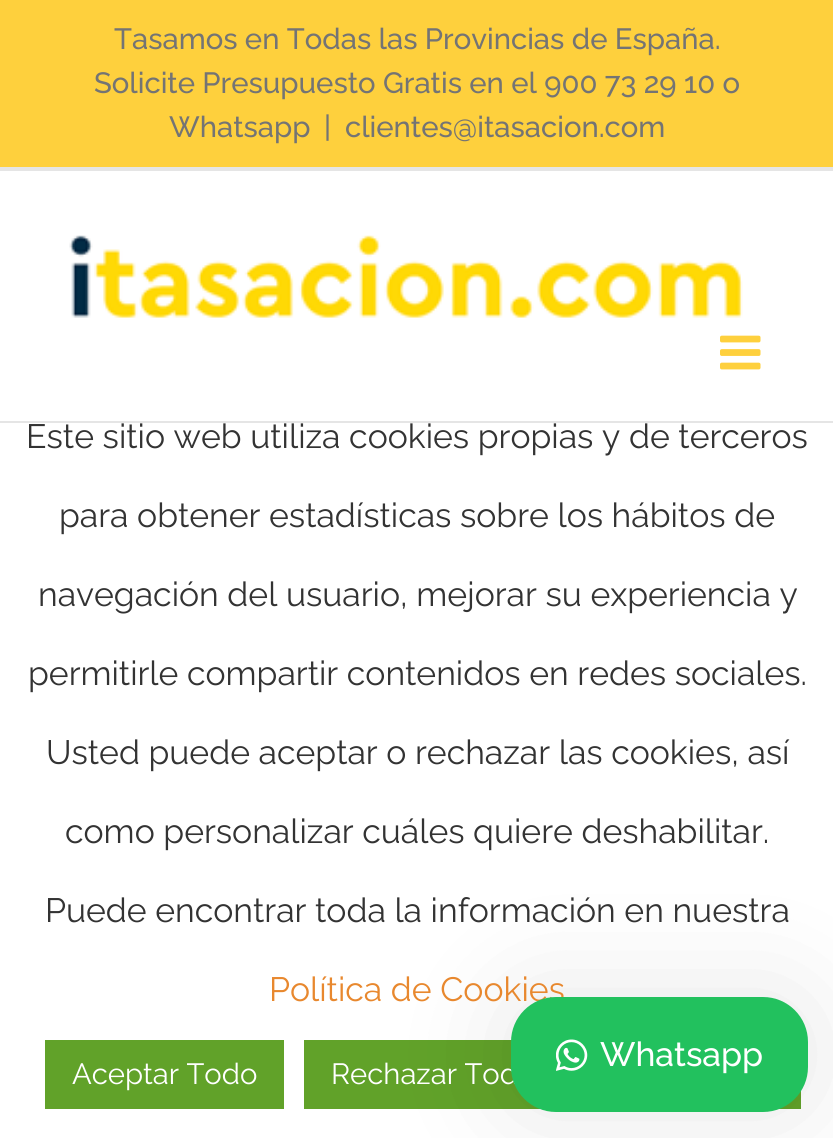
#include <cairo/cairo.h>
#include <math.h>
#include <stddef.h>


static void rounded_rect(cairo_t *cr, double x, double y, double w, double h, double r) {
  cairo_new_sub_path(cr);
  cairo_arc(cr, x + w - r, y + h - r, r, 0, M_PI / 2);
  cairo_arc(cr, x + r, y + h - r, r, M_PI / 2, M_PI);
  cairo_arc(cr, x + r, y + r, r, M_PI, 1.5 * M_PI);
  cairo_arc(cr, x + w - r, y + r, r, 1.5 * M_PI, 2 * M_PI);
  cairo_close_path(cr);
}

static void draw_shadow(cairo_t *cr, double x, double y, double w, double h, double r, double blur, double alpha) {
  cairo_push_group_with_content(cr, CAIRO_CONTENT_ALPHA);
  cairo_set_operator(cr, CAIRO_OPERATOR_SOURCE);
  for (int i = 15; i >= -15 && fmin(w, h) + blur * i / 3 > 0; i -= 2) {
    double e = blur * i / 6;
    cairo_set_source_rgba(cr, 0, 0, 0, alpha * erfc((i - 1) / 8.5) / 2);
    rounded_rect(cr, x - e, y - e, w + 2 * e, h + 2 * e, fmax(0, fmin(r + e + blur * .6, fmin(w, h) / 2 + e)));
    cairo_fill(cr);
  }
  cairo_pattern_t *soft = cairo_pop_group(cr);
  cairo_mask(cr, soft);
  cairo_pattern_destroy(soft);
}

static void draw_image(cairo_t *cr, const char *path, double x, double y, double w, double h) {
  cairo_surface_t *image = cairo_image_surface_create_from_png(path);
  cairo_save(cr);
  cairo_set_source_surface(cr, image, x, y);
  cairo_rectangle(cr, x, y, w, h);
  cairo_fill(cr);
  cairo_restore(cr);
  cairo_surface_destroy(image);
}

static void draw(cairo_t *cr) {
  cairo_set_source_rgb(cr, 1, 1, 1);
  cairo_paint(cr);
  cairo_set_source_rgb(cr, 254 / 255.0, 208 / 255.0, 61 / 255.0);
  cairo_rectangle(cr, 0, 0, 833, 167);
  cairo_fill(cr);
  cairo_set_source_rgb(cr, 229 / 255.0, 229 / 255.0, 229 / 255.0);
  cairo_rectangle(cr, 0, 167, 833, 4);
  cairo_fill(cr);
  cairo_rectangle(cr, 0, 421, 833, 2);
  cairo_fill(cr);
  draw_image(cr, "images/1.png", 69, 235, 674, 83);
  draw_image(cr, "images/2.png", 720, 335, 41, 35);
  cairo_set_source_rgb(cr, 97 / 255.0, 162 / 255.0, 41 / 255.0);
  cairo_rectangle(cr, 45, 1040, 239, 69);
  cairo_fill(cr);
  cairo_rectangle(cr, 304, 1040, 236, 69);
  cairo_fill(cr);
  cairo_rectangle(cr, 779, 1091, 22, 18);
  cairo_fill(cr);
  cairo_set_source_rgb(cr, 0, 0, 0);
  draw_shadow(cr, 511, 997, 297, 115, 45, 56, 0.1);
  cairo_select_font_face(cr, "Raleway Medium", CAIRO_FONT_SLANT_NORMAL, CAIRO_FONT_WEIGHT_NORMAL);
  cairo_set_font_size(cr, 29.25);
  cairo_set_source_rgb(cr, 116 / 255.0, 116 / 255.0, 116 / 255.0);
  cairo_move_to(cr, 114, 49);
  cairo_show_text(cr, "Tasamos en Todas las Provincias de España.");
  cairo_move_to(cr, 94, 93);
  cairo_show_text(cr, "Solicite Presupuesto Gratis en el 900 73 29 10 o");
  cairo_move_to(cr, 169, 137);
  cairo_show_text(cr, "Whatsapp");
  cairo_move_to(cr, 324, 137);
  cairo_show_text(cr, "|");
  cairo_move_to(cr, 345, 137);
  cairo_show_text(cr, "clientes@itasacion.com");
  cairo_select_font_face(cr, "Raleway", CAIRO_FONT_SLANT_NORMAL, CAIRO_FONT_WEIGHT_NORMAL);
  cairo_set_font_size(cr, 33.75);
  cairo_set_source_rgb(cr, 51 / 255.0, 51 / 255.0, 51 / 255.0);
  cairo_move_to(cr, 26, 448);
  cairo_show_text(cr, "Este sitio web utiliza cookies propias y de terceros");
  cairo_move_to(cr, 59, 527);
  cairo_show_text(cr, "para obtener estadísticas sobre los hábitos de");
  cairo_move_to(cr, 38, 606);
  cairo_show_text(cr, "navegación del usuario, mejorar su experiencia y");
  cairo_move_to(cr, 28, 685);
  cairo_show_text(cr, "permitirle compartir contenidos en redes sociales.");
  cairo_move_to(cr, 46, 764);
  cairo_show_text(cr, "Usted puede aceptar o rechazar las cookies, así");
  cairo_move_to(cr, 65, 843);
  cairo_show_text(cr, "como personalizar cuáles quiere deshabilitar.");
  cairo_move_to(cr, 45, 922);
  cairo_show_text(cr, "Puede encontrar toda la información en nuestra");
  cairo_set_source_rgb(cr, 232 / 255.0, 136 / 255.0, 46 / 255.0);
  cairo_move_to(cr, 269, 1001);
  cairo_show_text(cr, "Política de Cookies");
  cairo_set_font_size(cr, 29.25);
  cairo_set_source_rgb(cr, 1, 1, 1);
  cairo_move_to(cr, 72, 1084);
  cairo_show_text(cr, "Aceptar Todo");
  cairo_move_to(cr, 331, 1084);
  cairo_show_text(cr, "Rechazar Tod");
  cairo_set_source_rgb(cr, 34 / 255.0, 193 / 255.0, 94 / 255.0);
  rounded_rect(cr, 511, 997, 297, 115, 45);
  cairo_fill(cr);
  draw_image(cr, "images/3.png", 556, 1039, 32, 32);
  cairo_select_font_face(cr, "Raleway Medium", CAIRO_FONT_SLANT_NORMAL, CAIRO_FONT_WEIGHT_NORMAL);
  cairo_set_font_size(cr, 33.75);
  cairo_set_source_rgb(cr, 1, 1, 1);
  cairo_move_to(cr, 600, 1066);
  cairo_show_text(cr, "Whatsapp");
}

int main(void) {
  cairo_surface_t *surface = cairo_image_surface_create(CAIRO_FORMAT_RGB24, 833, 1138);
  cairo_t *cr = cairo_create(surface);
  cairo_font_options_t *options = cairo_font_options_create();
  cairo_font_options_set_hint_metrics(options, CAIRO_HINT_METRICS_OFF);
  cairo_font_options_set_hint_style(options, CAIRO_HINT_STYLE_NONE);
  cairo_set_font_options(cr, options);
  cairo_set_miter_limit(cr, 4);
  draw(cr);
  cairo_surface_write_to_png(surface, "out.png");
  cairo_font_options_destroy(options);
  cairo_destroy(cr);
  cairo_surface_destroy(surface);
  return 0;
}
